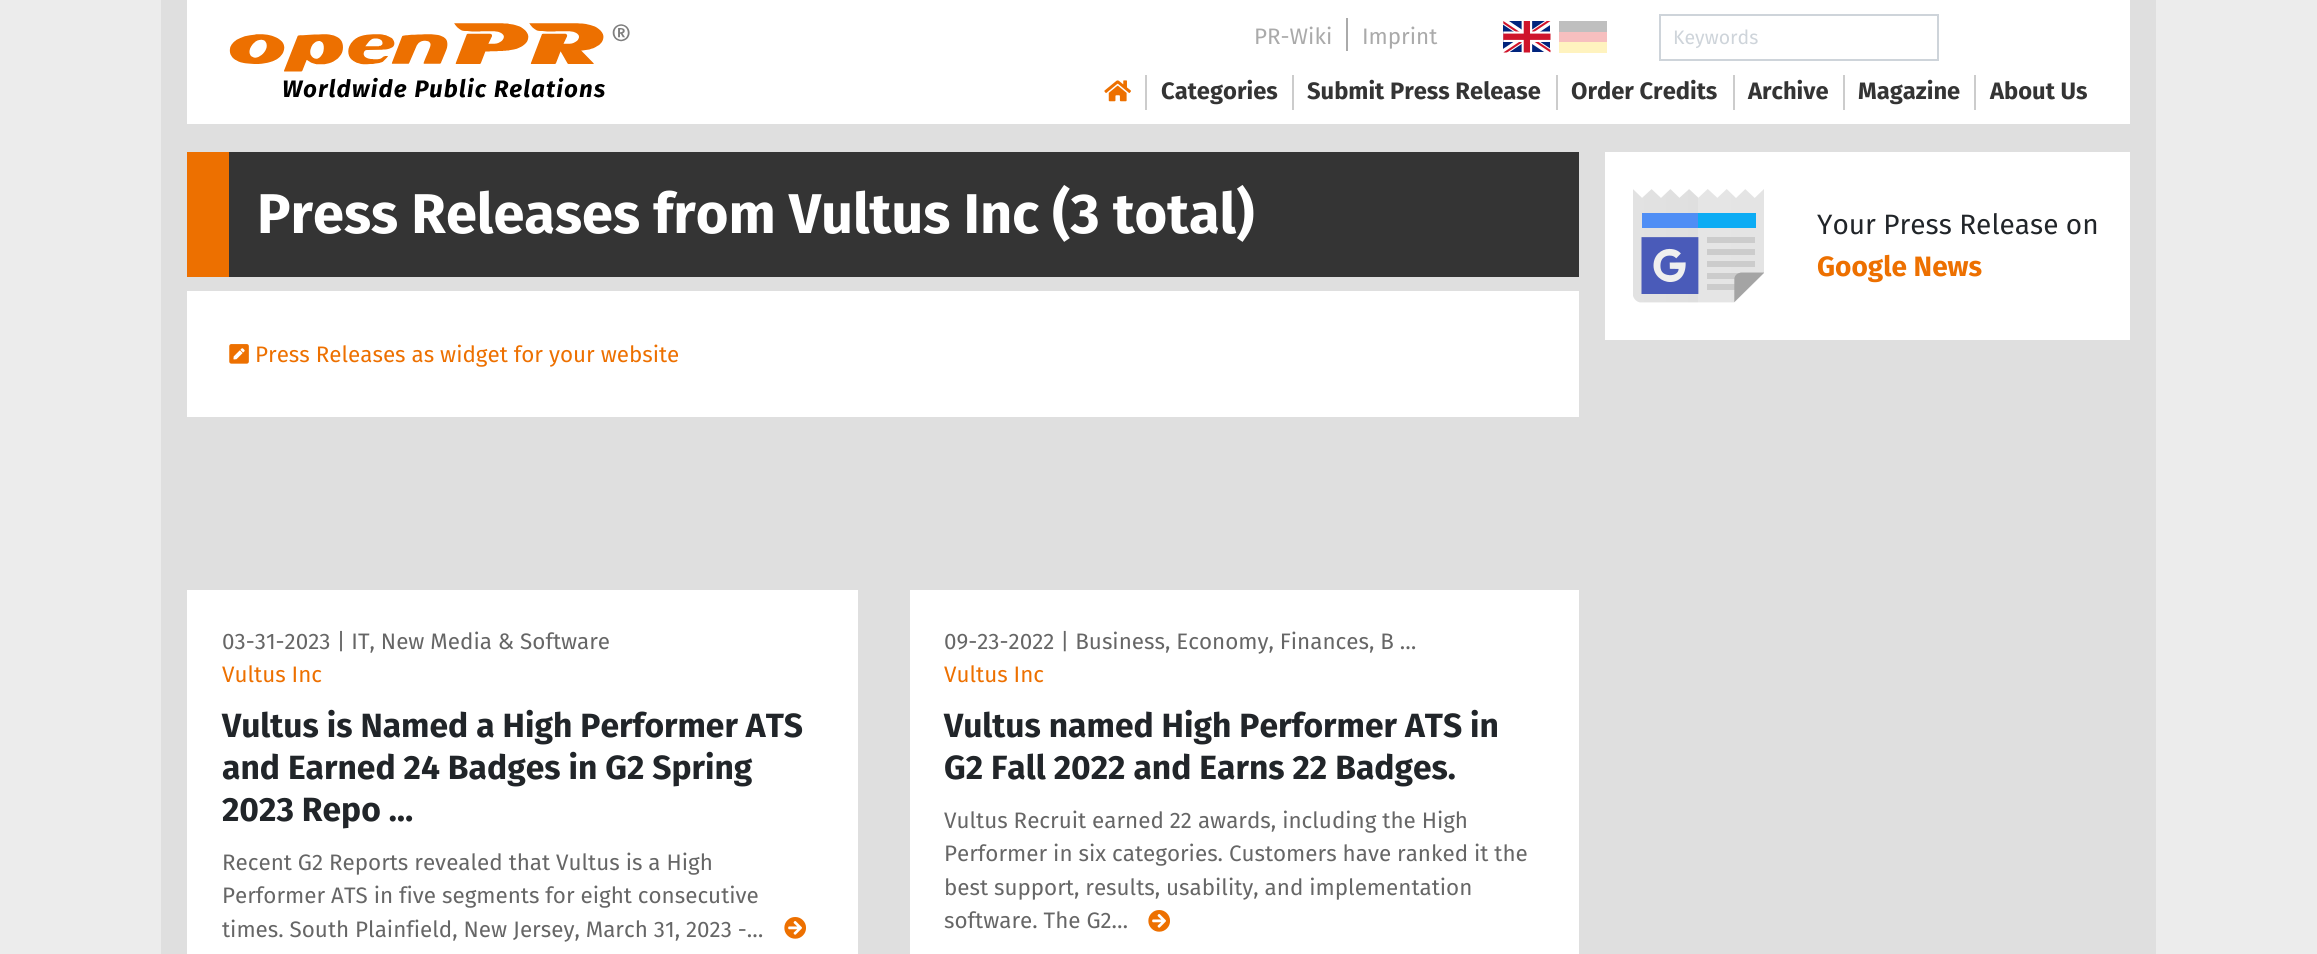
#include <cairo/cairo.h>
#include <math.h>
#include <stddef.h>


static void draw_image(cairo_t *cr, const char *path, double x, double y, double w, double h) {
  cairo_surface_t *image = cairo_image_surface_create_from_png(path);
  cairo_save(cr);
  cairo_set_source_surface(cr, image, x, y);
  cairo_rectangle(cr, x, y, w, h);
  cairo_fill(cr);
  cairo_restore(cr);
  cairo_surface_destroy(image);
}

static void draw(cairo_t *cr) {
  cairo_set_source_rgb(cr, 236 / 255.0, 236 / 255.0, 236 / 255.0);
  cairo_paint(cr);
  cairo_set_source_rgb(cr, 223 / 255.0, 223 / 255.0, 223 / 255.0);
  cairo_rectangle(cr, 161, 0, 1995, 954);
  cairo_fill(cr);
  cairo_set_source_rgb(cr, 1, 1, 1);
  cairo_rectangle(cr, 187, 0, 1943, 124);
  cairo_fill(cr);
  draw_image(cr, "images/1.png", 229, 23, 401, 75);
  cairo_set_source_rgb(cr, 170 / 255.0, 170 / 255.0, 170 / 255.0);
  cairo_rectangle(cr, 1346, 18, 2, 33);
  cairo_fill(cr);
  draw_image(cr, "images/2.png", 1503, 21, 48, 32);
  cairo_set_source_rgb(cr, 191 / 255.0, 191 / 255.0, 191 / 255.0);
  cairo_rectangle(cr, 1559, 21, 48, 11);
  cairo_fill(cr);
  cairo_set_source_rgb(cr, 247 / 255.0, 191 / 255.0, 191 / 255.0);
  cairo_rectangle(cr, 1559, 32, 48, 10);
  cairo_fill(cr);
  cairo_set_source_rgb(cr, 1, 243 / 255.0, 191 / 255.0);
  cairo_rectangle(cr, 1559, 42, 48, 11);
  cairo_fill(cr);
  cairo_rectangle(cr, 1660, 15, 278, 45);
  cairo_set_source_rgb(cr, 206 / 255.0, 212 / 255.0, 218 / 255.0);
  cairo_stroke(cr);
  cairo_set_source_rgb(cr, 204 / 255.0, 204 / 255.0, 204 / 255.0);
  cairo_rectangle(cr, 1145, 75, 2, 35);
  cairo_fill(cr);
  draw_image(cr, "images/3.png", 1104, 80, 27, 22);
  cairo_rectangle(cr, 1292, 75, 2, 35);
  cairo_fill(cr);
  cairo_rectangle(cr, 1556, 75, 2, 35);
  cairo_fill(cr);
  cairo_rectangle(cr, 1733, 75, 2, 35);
  cairo_fill(cr);
  cairo_rectangle(cr, 1843, 75, 2, 35);
  cairo_fill(cr);
  cairo_rectangle(cr, 1974, 75, 2, 35);
  cairo_fill(cr);
  cairo_set_source_rgb(cr, 52 / 255.0, 52 / 255.0, 52 / 255.0);
  cairo_rectangle(cr, 229, 152, 1350, 125);
  cairo_fill(cr);
  cairo_set_source_rgb(cr, 237 / 255.0, 112 / 255.0, 0);
  cairo_rectangle(cr, 187, 152, 42, 125);
  cairo_fill(cr);
  cairo_set_source_rgb(cr, 1, 1, 1);
  cairo_rectangle(cr, 187, 291, 1392, 126);
  cairo_fill(cr);
  draw_image(cr, "images/4.png", 229, 344, 20, 20);
  cairo_rectangle(cr, 187, 590, 671, 364);
  cairo_fill(cr);
  draw_image(cr, "images/5.png", 784, 917, 22, 22);
  cairo_rectangle(cr, 910, 590, 669, 364);
  cairo_fill(cr);
  draw_image(cr, "images/5.png", 1148, 910, 22, 22);
  cairo_rectangle(cr, 1605, 152, 525, 188);
  cairo_fill(cr);
  draw_image(cr, "images/6.png", 1633, 189, 131, 114);
  cairo_select_font_face(cr, "Fira Sans", CAIRO_FONT_SLANT_NORMAL, CAIRO_FONT_WEIGHT_NORMAL);
  cairo_set_font_size(cr, 22.4);
  cairo_set_source_rgb(cr, 170 / 255.0, 170 / 255.0, 170 / 255.0);
  cairo_move_to(cr, 1254, 44);
  cairo_show_text(cr, "PR-Wiki");
  cairo_move_to(cr, 1362, 44);
  cairo_show_text(cr, "Imprint");
  cairo_set_font_size(cr, 19.5);
  cairo_set_source_rgb(cr, 206 / 255.0, 212 / 255.0, 218 / 255.0);
  cairo_move_to(cr, 1673, 44);
  cairo_show_text(cr, "Keywords");
  cairo_select_font_face(cr, "Fira Sans", CAIRO_FONT_SLANT_NORMAL, CAIRO_FONT_WEIGHT_BOLD);
  cairo_set_font_size(cr, 23.75);
  cairo_set_source_rgb(cr, 52 / 255.0, 52 / 255.0, 52 / 255.0);
  cairo_move_to(cr, 1161, 99);
  cairo_show_text(cr, "Categories");
  cairo_move_to(cr, 1307, 99);
  cairo_show_text(cr, "Submit Press Release");
  cairo_move_to(cr, 1571, 99);
  cairo_show_text(cr, "Order Credits");
  cairo_move_to(cr, 1748, 99);
  cairo_show_text(cr, "Archive");
  cairo_move_to(cr, 1858, 99);
  cairo_show_text(cr, "Magazine");
  cairo_move_to(cr, 1990, 99);
  cairo_show_text(cr, "About Us");
  cairo_set_font_size(cr, 56);
  cairo_set_source_rgb(cr, 1, 1, 1);
  cairo_move_to(cr, 257, 233);
  cairo_show_text(cr, "Press Releases from Vultus Inc (3 total)");
  cairo_select_font_face(cr, "Fira Sans", CAIRO_FONT_SLANT_NORMAL, CAIRO_FONT_WEIGHT_NORMAL);
  cairo_set_font_size(cr, 22.4);
  cairo_set_source_rgb(cr, 237 / 255.0, 112 / 255.0, 0);
  cairo_move_to(cr, 255, 362);
  cairo_show_text(cr, "Press Releases as widget for your website");
  cairo_set_source_rgb(cr, 102 / 255.0, 102 / 255.0, 102 / 255.0);
  cairo_move_to(cr, 222, 649);
  cairo_show_text(cr, "03-31-2023 | IT, New Media & Software");
  cairo_set_source_rgb(cr, 237 / 255.0, 112 / 255.0, 0);
  cairo_move_to(cr, 222, 682);
  cairo_show_text(cr, "Vultus Inc");
  cairo_select_font_face(cr, "Fira Sans", CAIRO_FONT_SLANT_NORMAL, CAIRO_FONT_WEIGHT_BOLD);
  cairo_set_font_size(cr, 33.6);
  cairo_set_source_rgb(cr, 33 / 255.0, 37 / 255.0, 41 / 255.0);
  cairo_move_to(cr, 222, 737);
  cairo_show_text(cr, "Vultus is Named a High Performer ATS");
  cairo_move_to(cr, 222, 779);
  cairo_show_text(cr, "and Earned 24 Badges in G2 Spring");
  cairo_move_to(cr, 222, 821);
  cairo_show_text(cr, "2023 Repo …");
  cairo_select_font_face(cr, "Fira Sans", CAIRO_FONT_SLANT_NORMAL, CAIRO_FONT_WEIGHT_NORMAL);
  cairo_set_font_size(cr, 22.4);
  cairo_set_source_rgb(cr, 102 / 255.0, 102 / 255.0, 102 / 255.0);
  cairo_move_to(cr, 222, 870);
  cairo_show_text(cr, "Recent G2 Reports revealed that Vultus is a High");
  cairo_move_to(cr, 222, 903);
  cairo_show_text(cr, "Performer ATS in five segments for eight consecutive");
  cairo_move_to(cr, 222, 937);
  cairo_show_text(cr, "times. South Plainfield, New Jersey, March 31, 2023 -…");
  cairo_move_to(cr, 944, 649);
  cairo_show_text(cr, "09-23-2022 | Business, Economy, Finances, B …");
  cairo_set_source_rgb(cr, 237 / 255.0, 112 / 255.0, 0);
  cairo_move_to(cr, 944, 682);
  cairo_show_text(cr, "Vultus Inc");
  cairo_select_font_face(cr, "Fira Sans", CAIRO_FONT_SLANT_NORMAL, CAIRO_FONT_WEIGHT_BOLD);
  cairo_set_font_size(cr, 33.6);
  cairo_set_source_rgb(cr, 33 / 255.0, 37 / 255.0, 41 / 255.0);
  cairo_move_to(cr, 944, 737);
  cairo_show_text(cr, "Vultus named High Performer ATS in");
  cairo_move_to(cr, 944, 779);
  cairo_show_text(cr, "G2 Fall 2022 and Earns 22 Badges.");
  cairo_select_font_face(cr, "Fira Sans", CAIRO_FONT_SLANT_NORMAL, CAIRO_FONT_WEIGHT_NORMAL);
  cairo_set_font_size(cr, 22.4);
  cairo_set_source_rgb(cr, 102 / 255.0, 102 / 255.0, 102 / 255.0);
  cairo_move_to(cr, 944, 828);
  cairo_show_text(cr, "Vultus Recruit earned 22 awards, including the High");
  cairo_move_to(cr, 944, 861);
  cairo_show_text(cr, "Performer in six categories. Customers have ranked it the");
  cairo_move_to(cr, 944, 895);
  cairo_show_text(cr, "best support, results, usability, and implementation");
  cairo_move_to(cr, 944, 928);
  cairo_show_text(cr, "software. The G2…");
  cairo_set_font_size(cr, 28);
  cairo_set_source_rgb(cr, 33 / 255.0, 37 / 255.0, 41 / 255.0);
  cairo_move_to(cr, 1817, 234);
  cairo_show_text(cr, "Your Press Release on");
  cairo_select_font_face(cr, "Fira Sans", CAIRO_FONT_SLANT_NORMAL, CAIRO_FONT_WEIGHT_BOLD);
  cairo_set_source_rgb(cr, 237 / 255.0, 112 / 255.0, 0);
  cairo_move_to(cr, 1817, 276);
  cairo_show_text(cr, "Google News");
}

int main(void) {
  cairo_surface_t *surface = cairo_image_surface_create(CAIRO_FORMAT_RGB24, 2317, 954);
  cairo_t *cr = cairo_create(surface);
  cairo_font_options_t *options = cairo_font_options_create();
  cairo_font_options_set_hint_metrics(options, CAIRO_HINT_METRICS_OFF);
  cairo_font_options_set_hint_style(options, CAIRO_HINT_STYLE_NONE);
  cairo_set_font_options(cr, options);
  cairo_set_miter_limit(cr, 4);
  draw(cr);
  cairo_surface_write_to_png(surface, "out.png");
  cairo_font_options_destroy(options);
  cairo_destroy(cr);
  cairo_surface_destroy(surface);
  return 0;
}
